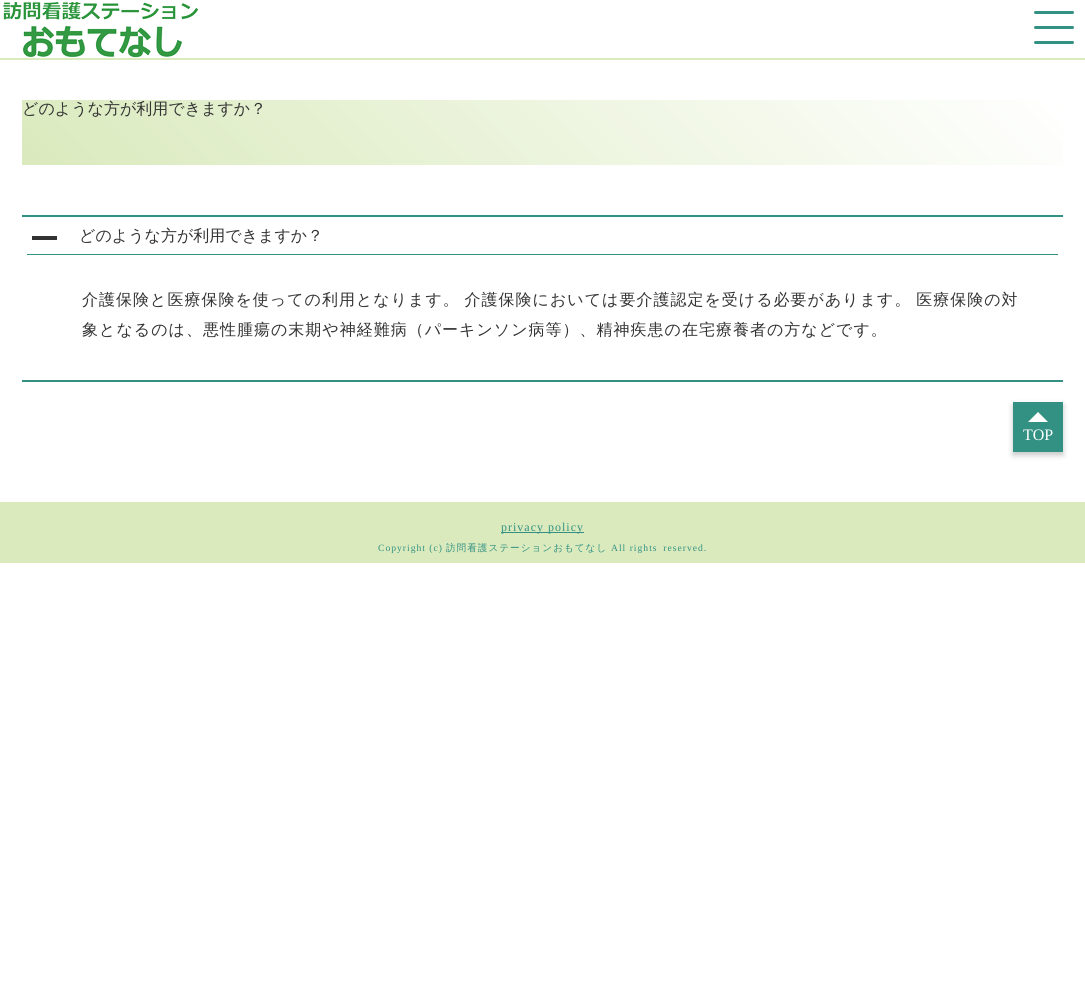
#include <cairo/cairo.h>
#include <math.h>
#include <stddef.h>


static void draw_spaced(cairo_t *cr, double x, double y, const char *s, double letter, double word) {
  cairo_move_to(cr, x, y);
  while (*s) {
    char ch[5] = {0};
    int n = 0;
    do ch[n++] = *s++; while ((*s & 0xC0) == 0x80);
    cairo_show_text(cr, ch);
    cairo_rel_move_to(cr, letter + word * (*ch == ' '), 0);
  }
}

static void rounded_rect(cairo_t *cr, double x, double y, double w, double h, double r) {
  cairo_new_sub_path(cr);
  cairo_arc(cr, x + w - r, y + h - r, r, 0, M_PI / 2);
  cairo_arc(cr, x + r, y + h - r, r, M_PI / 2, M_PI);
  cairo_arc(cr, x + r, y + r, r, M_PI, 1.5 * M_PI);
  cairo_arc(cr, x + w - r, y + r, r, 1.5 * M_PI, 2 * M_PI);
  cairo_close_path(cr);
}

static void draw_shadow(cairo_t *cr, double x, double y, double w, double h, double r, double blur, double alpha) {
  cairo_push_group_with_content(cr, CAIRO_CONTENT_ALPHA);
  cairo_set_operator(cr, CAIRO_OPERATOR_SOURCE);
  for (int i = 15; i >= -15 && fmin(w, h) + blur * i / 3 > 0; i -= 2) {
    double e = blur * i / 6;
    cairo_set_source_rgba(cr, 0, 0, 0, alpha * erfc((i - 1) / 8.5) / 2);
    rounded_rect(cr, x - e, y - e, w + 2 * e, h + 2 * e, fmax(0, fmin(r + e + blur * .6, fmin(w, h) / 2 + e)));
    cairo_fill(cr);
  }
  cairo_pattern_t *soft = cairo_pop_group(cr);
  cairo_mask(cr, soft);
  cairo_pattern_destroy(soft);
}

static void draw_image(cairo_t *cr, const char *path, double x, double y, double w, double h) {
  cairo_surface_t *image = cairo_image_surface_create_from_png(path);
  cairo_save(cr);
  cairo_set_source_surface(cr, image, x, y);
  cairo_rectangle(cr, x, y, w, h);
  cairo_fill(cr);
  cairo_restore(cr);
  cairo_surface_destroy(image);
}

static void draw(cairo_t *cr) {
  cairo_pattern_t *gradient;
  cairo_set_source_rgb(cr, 1, 1, 1);
  cairo_paint(cr);
  cairo_set_source_rgb(cr, 218 / 255.0, 234 / 255.0, 189 / 255.0);
  cairo_rectangle(cr, 0, 58, 1085, 2);
  cairo_fill(cr);
  draw_image(cr, "images/1.png", 3, 1, 196, 57);
  cairo_set_source_rgb(cr, 50 / 255.0, 145 / 255.0, 131 / 255.0);
  rounded_rect(cr, 1034, 11, 40, 3, 1.5);
  cairo_fill(cr);
  rounded_rect(cr, 1034, 26, 40, 3, 1.5);
  cairo_fill(cr);
  rounded_rect(cr, 1034, 41, 40, 3, 1.5);
  cairo_fill(cr);
  gradient = cairo_pattern_create_linear(266, 409, 819, -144);
  cairo_pattern_add_color_stop_rgba(gradient, 0, 218 / 255.0, 234 / 255.0, 189 / 255.0, 1);
  cairo_pattern_add_color_stop_rgba(gradient, 1, 1, 1, 1, 1);
  cairo_set_source(cr, gradient);
  cairo_pattern_destroy(gradient);
  cairo_rectangle(cr, 22, 100, 1041, 65);
  cairo_fill(cr);
  cairo_set_source_rgb(cr, 50 / 255.0, 145 / 255.0, 131 / 255.0);
  cairo_rectangle(cr, 22, 215, 1041, 2);
  cairo_fill(cr);
  cairo_rectangle(cr, 22, 380, 1041, 2);
  cairo_fill(cr);
  cairo_set_source_rgb(cr, 51 / 255.0, 51 / 255.0, 51 / 255.0);
  cairo_rectangle(cr, 32, 236, 25, 4);
  cairo_fill(cr);
  cairo_set_source_rgb(cr, 50 / 255.0, 145 / 255.0, 131 / 255.0);
  cairo_rectangle(cr, 27, 254, 1031, 1);
  cairo_fill(cr);
  cairo_set_source_rgb(cr, 0, 0, 0);
  draw_shadow(cr, 1013, 405, 50, 50, 0, 3, 0.23);
  cairo_set_source_rgb(cr, 50 / 255.0, 145 / 255.0, 131 / 255.0);
  cairo_rectangle(cr, 1013, 402, 50, 50);
  cairo_fill(cr);
  cairo_set_source_rgb(cr, 1, 1, 1);
  cairo_new_path(cr);
  cairo_move_to(cr, 1048, 422);
  cairo_line_to(cr, 1028, 422);
  cairo_line_to(cr, 1038, 412);
  cairo_close_path(cr);
  cairo_fill(cr);
  cairo_set_source_rgb(cr, 218 / 255.0, 234 / 255.0, 189 / 255.0);
  cairo_rectangle(cr, 0, 502, 1085, 61);
  cairo_fill(cr);
  cairo_set_source_rgb(cr, 50 / 255.0, 145 / 255.0, 131 / 255.0);
  cairo_rectangle(cr, 501, 532, 83, 1);
  cairo_fill(cr);
  cairo_select_font_face(cr, "WenQuanYi Zen Hei Medium", CAIRO_FONT_SLANT_NORMAL, CAIRO_FONT_WEIGHT_NORMAL);
  cairo_set_font_size(cr, 16);
  cairo_set_source_rgb(cr, 51 / 255.0, 51 / 255.0, 51 / 255.0);
  cairo_move_to(cr, 22, 114);
  cairo_show_text(cr, "どのような方が利用できますか？");
  cairo_move_to(cr, 79, 241);
  cairo_show_text(cr, "どのような方が利用できますか？");
  draw_spaced(cr, 82, 305, "介護保険と医療保険を使っての利用となります。 介護保険においては要介護認定を受ける必要があります。 医療保険の対", 1, -1);
  draw_spaced(cr, 82, 335, "象となるのは、悪性腫瘍の末期や神経難病（パーキンソン病等）、精神疾患の在宅療養者の方などです。", 1, 0);
  cairo_select_font_face(cr, "Liberation Serif", CAIRO_FONT_SLANT_NORMAL, CAIRO_FONT_WEIGHT_NORMAL);
  cairo_set_source_rgb(cr, 1, 1, 1);
  cairo_move_to(cr, 1023, 440);
  cairo_show_text(cr, "TOP");
  cairo_set_font_size(cr, 12);
  cairo_set_source_rgb(cr, 50 / 255.0, 145 / 255.0, 131 / 255.0);
  draw_spaced(cr, 501, 531, "privacy policy", 1, 0);
  cairo_set_font_size(cr, 9.6);
  draw_spaced(cr, 378, 551, "Copyright (c)", 1, 0);
  cairo_select_font_face(cr, "WenQuanYi Zen Hei Medium", CAIRO_FONT_SLANT_NORMAL, CAIRO_FONT_WEIGHT_NORMAL);
  draw_spaced(cr, 446, 551, "訪問看護ステーションおもてなし", 1, 0);
  cairo_select_font_face(cr, "Liberation Serif", CAIRO_FONT_SLANT_NORMAL, CAIRO_FONT_WEIGHT_NORMAL);
  draw_spaced(cr, 611, 551, "All rights reserved.", 1, 0);
}

int main(void) {
  cairo_surface_t *surface = cairo_image_surface_create(CAIRO_FORMAT_RGB24, 1085, 1003);
  cairo_t *cr = cairo_create(surface);
  cairo_font_options_t *options = cairo_font_options_create();
  cairo_font_options_set_hint_metrics(options, CAIRO_HINT_METRICS_OFF);
  cairo_font_options_set_hint_style(options, CAIRO_HINT_STYLE_NONE);
  cairo_set_font_options(cr, options);
  cairo_set_miter_limit(cr, 4);
  draw(cr);
  cairo_surface_write_to_png(surface, "out.png");
  cairo_font_options_destroy(options);
  cairo_destroy(cr);
  cairo_surface_destroy(surface);
  return 0;
}
